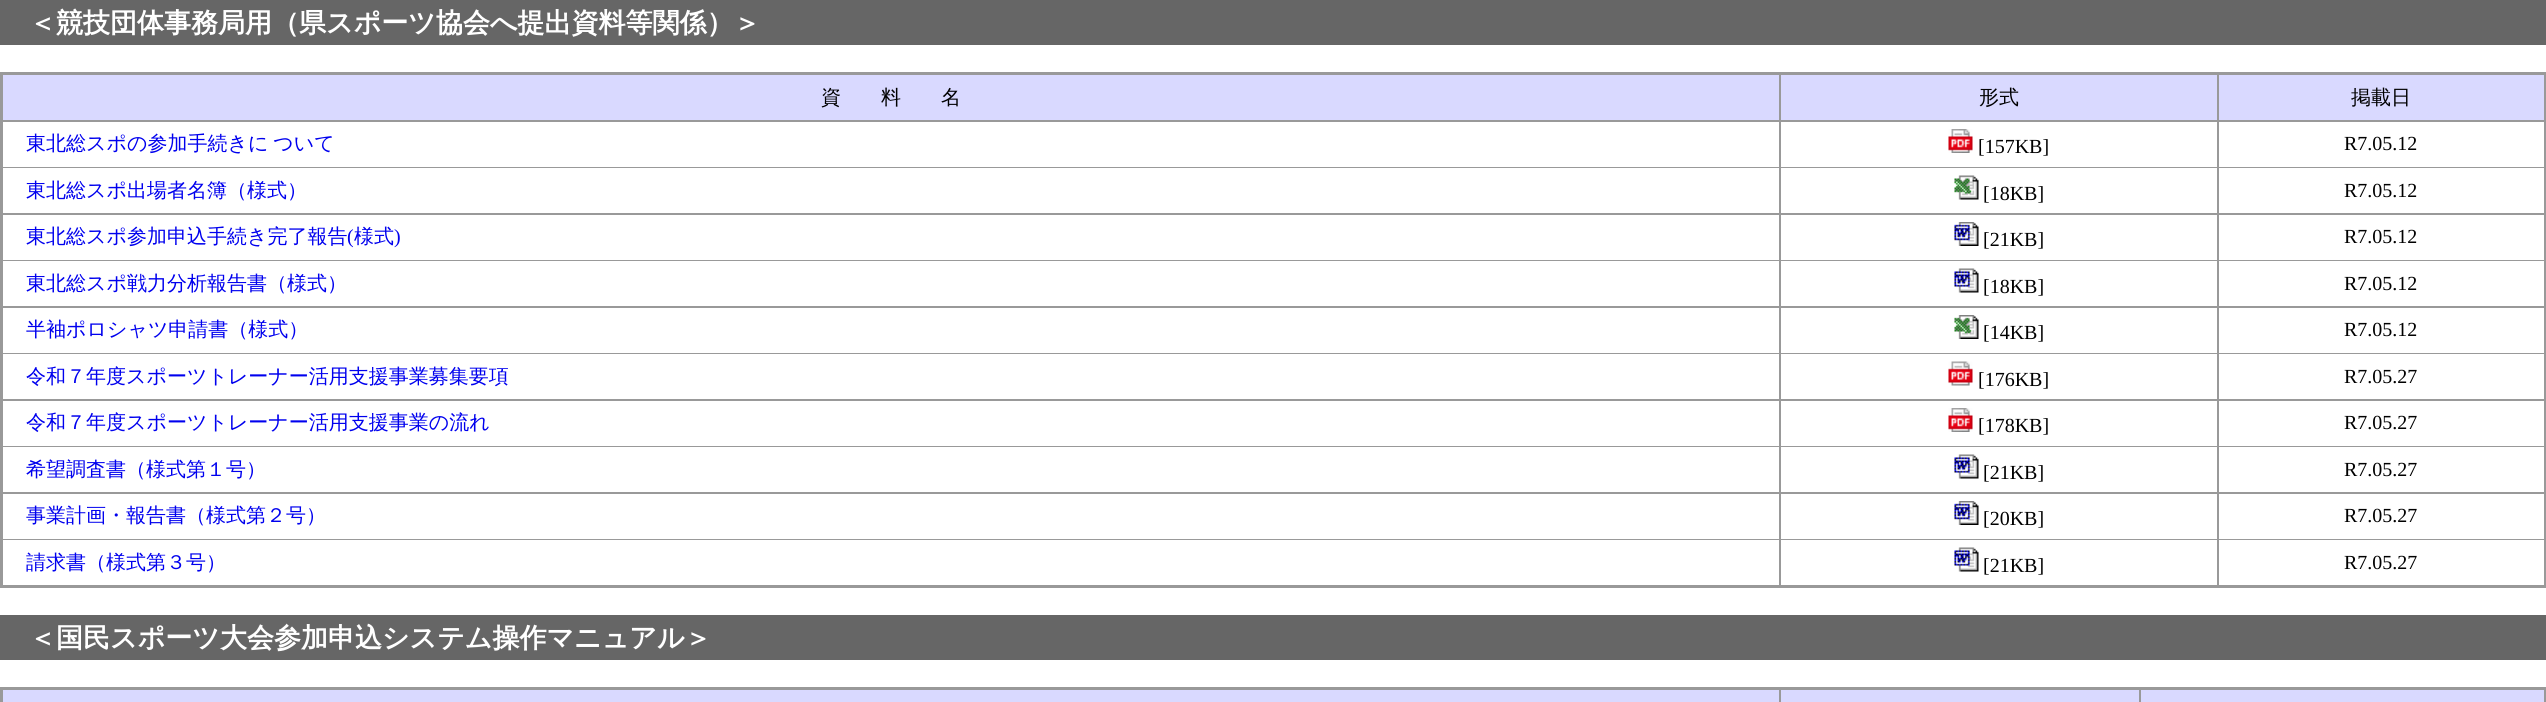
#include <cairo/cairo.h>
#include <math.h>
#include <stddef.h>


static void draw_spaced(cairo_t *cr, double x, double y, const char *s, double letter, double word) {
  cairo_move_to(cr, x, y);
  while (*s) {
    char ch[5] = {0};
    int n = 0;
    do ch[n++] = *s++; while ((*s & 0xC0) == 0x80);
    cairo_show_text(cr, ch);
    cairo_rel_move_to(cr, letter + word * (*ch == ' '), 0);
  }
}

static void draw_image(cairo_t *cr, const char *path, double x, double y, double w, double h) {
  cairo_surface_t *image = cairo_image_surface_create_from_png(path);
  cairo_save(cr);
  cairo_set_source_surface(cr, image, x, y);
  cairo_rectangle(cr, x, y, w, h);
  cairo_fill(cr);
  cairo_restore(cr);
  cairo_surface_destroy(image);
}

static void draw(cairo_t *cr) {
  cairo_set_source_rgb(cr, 1, 1, 1);
  cairo_paint(cr);
  cairo_set_source_rgb(cr, 102 / 255.0, 102 / 255.0, 102 / 255.0);
  cairo_rectangle(cr, 0, 0, 2546, 45);
  cairo_fill(cr);
  cairo_set_source_rgb(cr, 153 / 255.0, 153 / 255.0, 153 / 255.0);
  cairo_rectangle(cr, 0, 72, 2546, 516);
  cairo_fill(cr);
  cairo_set_source_rgb(cr, 217 / 255.0, 217 / 255.0, 1);
  cairo_rectangle(cr, 3, 75, 1776, 45);
  cairo_fill(cr);
  cairo_rectangle(cr, 1781, 75, 436, 45);
  cairo_fill(cr);
  cairo_rectangle(cr, 2219, 75, 325, 45);
  cairo_fill(cr);
  cairo_set_source_rgb(cr, 1, 1, 1);
  cairo_rectangle(cr, 3, 122, 1776, 45);
  cairo_fill(cr);
  cairo_rectangle(cr, 1781, 122, 436, 45);
  cairo_fill(cr);
  draw_image(cr, "images/1.png", 1948, 129, 25, 24);
  cairo_rectangle(cr, 2219, 122, 325, 45);
  cairo_fill(cr);
  cairo_rectangle(cr, 3, 168, 1776, 45);
  cairo_fill(cr);
  cairo_rectangle(cr, 1781, 168, 436, 45);
  cairo_fill(cr);
  draw_image(cr, "images/2.png", 1954, 175, 25, 25);
  cairo_rectangle(cr, 2219, 168, 325, 45);
  cairo_fill(cr);
  cairo_rectangle(cr, 3, 215, 1776, 45);
  cairo_fill(cr);
  cairo_rectangle(cr, 1781, 215, 436, 45);
  cairo_fill(cr);
  draw_image(cr, "images/3.png", 1954, 222, 25, 24);
  cairo_rectangle(cr, 2219, 215, 325, 45);
  cairo_fill(cr);
  cairo_rectangle(cr, 3, 261, 1776, 45);
  cairo_fill(cr);
  cairo_rectangle(cr, 1781, 261, 436, 45);
  cairo_fill(cr);
  draw_image(cr, "images/4.png", 1954, 268, 25, 25);
  cairo_rectangle(cr, 2219, 261, 325, 45);
  cairo_fill(cr);
  cairo_rectangle(cr, 3, 308, 1776, 45);
  cairo_fill(cr);
  cairo_rectangle(cr, 1781, 308, 436, 45);
  cairo_fill(cr);
  draw_image(cr, "images/5.png", 1954, 315, 25, 24);
  cairo_rectangle(cr, 2219, 308, 325, 45);
  cairo_fill(cr);
  cairo_rectangle(cr, 3, 354, 1776, 45);
  cairo_fill(cr);
  cairo_rectangle(cr, 1781, 354, 436, 45);
  cairo_fill(cr);
  draw_image(cr, "images/6.png", 1948, 361, 25, 25);
  cairo_rectangle(cr, 2219, 354, 325, 45);
  cairo_fill(cr);
  cairo_rectangle(cr, 3, 401, 1776, 45);
  cairo_fill(cr);
  cairo_rectangle(cr, 1781, 401, 436, 45);
  cairo_fill(cr);
  draw_image(cr, "images/1.png", 1948, 408, 25, 24);
  cairo_rectangle(cr, 2219, 401, 325, 45);
  cairo_fill(cr);
  cairo_rectangle(cr, 3, 447, 1776, 45);
  cairo_fill(cr);
  cairo_rectangle(cr, 1781, 447, 436, 45);
  cairo_fill(cr);
  draw_image(cr, "images/4.png", 1954, 454, 25, 25);
  cairo_rectangle(cr, 2219, 447, 325, 45);
  cairo_fill(cr);
  cairo_rectangle(cr, 3, 494, 1776, 45);
  cairo_fill(cr);
  cairo_rectangle(cr, 1781, 494, 436, 45);
  cairo_fill(cr);
  draw_image(cr, "images/3.png", 1954, 501, 25, 24);
  cairo_rectangle(cr, 2219, 494, 325, 45);
  cairo_fill(cr);
  cairo_rectangle(cr, 3, 540, 1776, 45);
  cairo_fill(cr);
  cairo_rectangle(cr, 1781, 540, 436, 45);
  cairo_fill(cr);
  draw_image(cr, "images/4.png", 1954, 547, 25, 25);
  cairo_rectangle(cr, 2219, 540, 325, 45);
  cairo_fill(cr);
  cairo_set_source_rgb(cr, 102 / 255.0, 102 / 255.0, 102 / 255.0);
  cairo_rectangle(cr, 0, 615, 2546, 45);
  cairo_fill(cr);
  cairo_set_source_rgb(cr, 153 / 255.0, 153 / 255.0, 153 / 255.0);
  cairo_rectangle(cr, 0, 687, 2546, 15);
  cairo_fill(cr);
  cairo_set_source_rgb(cr, 217 / 255.0, 217 / 255.0, 1);
  cairo_rectangle(cr, 3, 690, 1776, 12);
  cairo_fill(cr);
  cairo_rectangle(cr, 1781, 690, 358, 12);
  cairo_fill(cr);
  cairo_rectangle(cr, 2141, 690, 403, 12);
  cairo_fill(cr);
  cairo_select_font_face(cr, "WenQuanYi Zen Hei", CAIRO_FONT_SLANT_NORMAL, CAIRO_FONT_WEIGHT_BOLD);
  cairo_set_font_size(cr, 27);
  cairo_set_source_rgb(cr, 1, 1, 1);
  cairo_move_to(cr, 29, 32);
  cairo_show_text(cr, "＜競技団体事務局用（県スポーツ協会へ提出資料等関係）＞");
  cairo_select_font_face(cr, "WenQuanYi Zen Hei Medium", CAIRO_FONT_SLANT_NORMAL, CAIRO_FONT_WEIGHT_NORMAL);
  cairo_set_font_size(cr, 20);
  cairo_set_source_rgb(cr, 0, 0, 0);
  cairo_move_to(cr, 821, 104);
  cairo_show_text(cr, "資　　料　　名");
  cairo_move_to(cr, 1979, 104);
  cairo_show_text(cr, "形式");
  cairo_move_to(cr, 2351, 104);
  cairo_show_text(cr, "掲載日");
  cairo_set_source_rgb(cr, 0, 0, 238 / 255.0);
  draw_spaced(cr, 26, 150, "東北総スポの参加手続きに ついて", 0, -1);
  cairo_select_font_face(cr, "Liberation Serif", CAIRO_FONT_SLANT_NORMAL, CAIRO_FONT_WEIGHT_NORMAL);
  cairo_set_source_rgb(cr, 0, 0, 0);
  cairo_move_to(cr, 1978, 153);
  cairo_show_text(cr, "[157KB]");
  cairo_move_to(cr, 2344, 150);
  cairo_show_text(cr, "R7.05.12");
  cairo_select_font_face(cr, "WenQuanYi Zen Hei Medium", CAIRO_FONT_SLANT_NORMAL, CAIRO_FONT_WEIGHT_NORMAL);
  cairo_set_source_rgb(cr, 0, 0, 238 / 255.0);
  cairo_move_to(cr, 26, 197);
  cairo_show_text(cr, "東北総スポ出場者名簿（様式）");
  cairo_select_font_face(cr, "Liberation Serif", CAIRO_FONT_SLANT_NORMAL, CAIRO_FONT_WEIGHT_NORMAL);
  cairo_set_source_rgb(cr, 0, 0, 0);
  cairo_move_to(cr, 1983, 200);
  cairo_show_text(cr, "[18KB]");
  cairo_move_to(cr, 2344, 197);
  cairo_show_text(cr, "R7.05.12");
  cairo_select_font_face(cr, "WenQuanYi Zen Hei Medium", CAIRO_FONT_SLANT_NORMAL, CAIRO_FONT_WEIGHT_NORMAL);
  cairo_set_source_rgb(cr, 0, 0, 238 / 255.0);
  cairo_move_to(cr, 26, 243);
  cairo_show_text(cr, "東北総スポ参加申込手続き完了報告");
  cairo_select_font_face(cr, "Liberation Serif", CAIRO_FONT_SLANT_NORMAL, CAIRO_FONT_WEIGHT_NORMAL);
  cairo_move_to(cr, 347, 243);
  cairo_show_text(cr, "(");
  cairo_select_font_face(cr, "WenQuanYi Zen Hei Medium", CAIRO_FONT_SLANT_NORMAL, CAIRO_FONT_WEIGHT_NORMAL);
  cairo_move_to(cr, 354, 243);
  cairo_show_text(cr, "様式");
  cairo_select_font_face(cr, "Liberation Serif", CAIRO_FONT_SLANT_NORMAL, CAIRO_FONT_WEIGHT_NORMAL);
  cairo_move_to(cr, 394, 243);
  cairo_show_text(cr, ")");
  cairo_set_source_rgb(cr, 0, 0, 0);
  cairo_move_to(cr, 1983, 246);
  cairo_show_text(cr, "[21KB]");
  cairo_move_to(cr, 2344, 243);
  cairo_show_text(cr, "R7.05.12");
  cairo_select_font_face(cr, "WenQuanYi Zen Hei Medium", CAIRO_FONT_SLANT_NORMAL, CAIRO_FONT_WEIGHT_NORMAL);
  cairo_set_source_rgb(cr, 0, 0, 238 / 255.0);
  cairo_move_to(cr, 26, 290);
  cairo_show_text(cr, "東北総スポ戦力分析報告書（様式）");
  cairo_select_font_face(cr, "Liberation Serif", CAIRO_FONT_SLANT_NORMAL, CAIRO_FONT_WEIGHT_NORMAL);
  cairo_set_source_rgb(cr, 0, 0, 0);
  cairo_move_to(cr, 1983, 293);
  cairo_show_text(cr, "[18KB]");
  cairo_move_to(cr, 2344, 290);
  cairo_show_text(cr, "R7.05.12");
  cairo_select_font_face(cr, "WenQuanYi Zen Hei Medium", CAIRO_FONT_SLANT_NORMAL, CAIRO_FONT_WEIGHT_NORMAL);
  cairo_set_source_rgb(cr, 0, 0, 238 / 255.0);
  cairo_move_to(cr, 26, 336);
  cairo_show_text(cr, "半袖ポロシャツ申請書（様式）");
  cairo_select_font_face(cr, "Liberation Serif", CAIRO_FONT_SLANT_NORMAL, CAIRO_FONT_WEIGHT_NORMAL);
  cairo_set_source_rgb(cr, 0, 0, 0);
  cairo_move_to(cr, 1983, 339);
  cairo_show_text(cr, "[14KB]");
  cairo_move_to(cr, 2344, 336);
  cairo_show_text(cr, "R7.05.12");
  cairo_select_font_face(cr, "WenQuanYi Zen Hei Medium", CAIRO_FONT_SLANT_NORMAL, CAIRO_FONT_WEIGHT_NORMAL);
  cairo_set_source_rgb(cr, 0, 0, 238 / 255.0);
  cairo_move_to(cr, 26, 383);
  cairo_show_text(cr, "令和７年度スポーツトレーナー活用支援事業募集要項");
  cairo_select_font_face(cr, "Liberation Serif", CAIRO_FONT_SLANT_NORMAL, CAIRO_FONT_WEIGHT_NORMAL);
  cairo_set_source_rgb(cr, 0, 0, 0);
  cairo_move_to(cr, 1978, 386);
  cairo_show_text(cr, "[176KB]");
  cairo_move_to(cr, 2344, 383);
  cairo_show_text(cr, "R7.05.27");
  cairo_select_font_face(cr, "WenQuanYi Zen Hei Medium", CAIRO_FONT_SLANT_NORMAL, CAIRO_FONT_WEIGHT_NORMAL);
  cairo_set_source_rgb(cr, 0, 0, 238 / 255.0);
  cairo_move_to(cr, 26, 429);
  cairo_show_text(cr, "令和７年度スポーツトレーナー活用支援事業の流れ");
  cairo_select_font_face(cr, "Liberation Serif", CAIRO_FONT_SLANT_NORMAL, CAIRO_FONT_WEIGHT_NORMAL);
  cairo_set_source_rgb(cr, 0, 0, 0);
  cairo_move_to(cr, 1978, 432);
  cairo_show_text(cr, "[178KB]");
  cairo_move_to(cr, 2344, 429);
  cairo_show_text(cr, "R7.05.27");
  cairo_select_font_face(cr, "WenQuanYi Zen Hei Medium", CAIRO_FONT_SLANT_NORMAL, CAIRO_FONT_WEIGHT_NORMAL);
  cairo_set_source_rgb(cr, 0, 0, 238 / 255.0);
  cairo_move_to(cr, 26, 476);
  cairo_show_text(cr, "希望調査書（様式第１号）");
  cairo_select_font_face(cr, "Liberation Serif", CAIRO_FONT_SLANT_NORMAL, CAIRO_FONT_WEIGHT_NORMAL);
  cairo_set_source_rgb(cr, 0, 0, 0);
  cairo_move_to(cr, 1983, 479);
  cairo_show_text(cr, "[21KB]");
  cairo_move_to(cr, 2344, 476);
  cairo_show_text(cr, "R7.05.27");
  cairo_select_font_face(cr, "WenQuanYi Zen Hei Medium", CAIRO_FONT_SLANT_NORMAL, CAIRO_FONT_WEIGHT_NORMAL);
  cairo_set_source_rgb(cr, 0, 0, 238 / 255.0);
  cairo_move_to(cr, 26, 522);
  cairo_show_text(cr, "事業計画・報告書（様式第２号）");
  cairo_select_font_face(cr, "Liberation Serif", CAIRO_FONT_SLANT_NORMAL, CAIRO_FONT_WEIGHT_NORMAL);
  cairo_set_source_rgb(cr, 0, 0, 0);
  cairo_move_to(cr, 1983, 525);
  cairo_show_text(cr, "[20KB]");
  cairo_move_to(cr, 2344, 522);
  cairo_show_text(cr, "R7.05.27");
  cairo_select_font_face(cr, "WenQuanYi Zen Hei Medium", CAIRO_FONT_SLANT_NORMAL, CAIRO_FONT_WEIGHT_NORMAL);
  cairo_set_source_rgb(cr, 0, 0, 238 / 255.0);
  cairo_move_to(cr, 26, 569);
  cairo_show_text(cr, "請求書（様式第３号）");
  cairo_select_font_face(cr, "Liberation Serif", CAIRO_FONT_SLANT_NORMAL, CAIRO_FONT_WEIGHT_NORMAL);
  cairo_set_source_rgb(cr, 0, 0, 0);
  cairo_move_to(cr, 1983, 572);
  cairo_show_text(cr, "[21KB]");
  cairo_move_to(cr, 2344, 569);
  cairo_show_text(cr, "R7.05.27");
  cairo_select_font_face(cr, "WenQuanYi Zen Hei", CAIRO_FONT_SLANT_NORMAL, CAIRO_FONT_WEIGHT_BOLD);
  cairo_set_font_size(cr, 27);
  cairo_set_source_rgb(cr, 1, 1, 1);
  cairo_move_to(cr, 29, 647);
  cairo_show_text(cr, "＜国民スポーツ大会参加申込システム操作マニュアル＞");
}

int main(void) {
  cairo_surface_t *surface = cairo_image_surface_create(CAIRO_FORMAT_RGB24, 2546, 702);
  cairo_t *cr = cairo_create(surface);
  cairo_font_options_t *options = cairo_font_options_create();
  cairo_font_options_set_hint_metrics(options, CAIRO_HINT_METRICS_OFF);
  cairo_font_options_set_hint_style(options, CAIRO_HINT_STYLE_NONE);
  cairo_set_font_options(cr, options);
  cairo_set_miter_limit(cr, 4);
  draw(cr);
  cairo_surface_write_to_png(surface, "out.png");
  cairo_font_options_destroy(options);
  cairo_destroy(cr);
  cairo_surface_destroy(surface);
  return 0;
}
